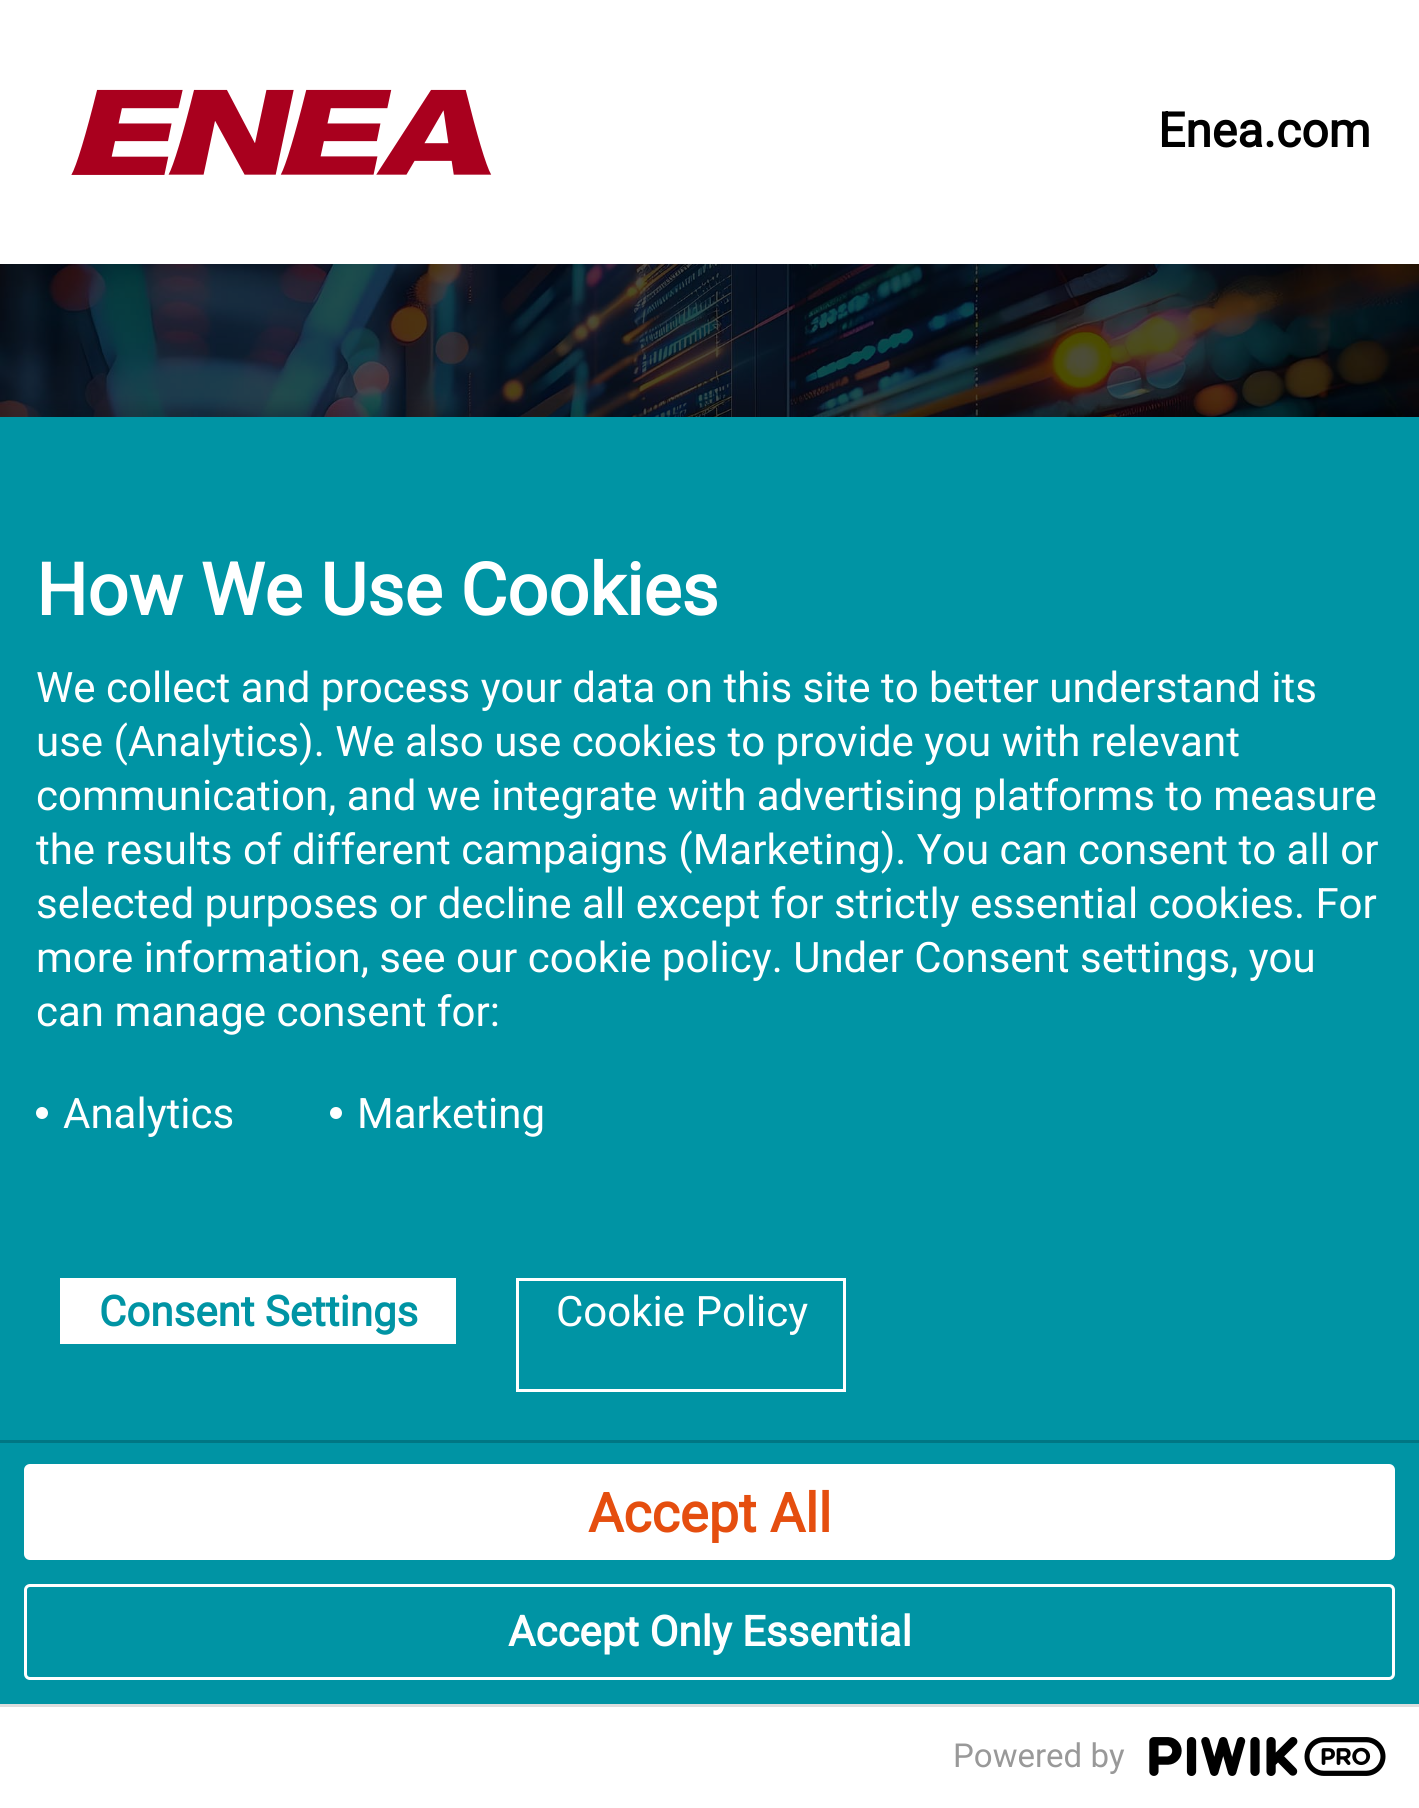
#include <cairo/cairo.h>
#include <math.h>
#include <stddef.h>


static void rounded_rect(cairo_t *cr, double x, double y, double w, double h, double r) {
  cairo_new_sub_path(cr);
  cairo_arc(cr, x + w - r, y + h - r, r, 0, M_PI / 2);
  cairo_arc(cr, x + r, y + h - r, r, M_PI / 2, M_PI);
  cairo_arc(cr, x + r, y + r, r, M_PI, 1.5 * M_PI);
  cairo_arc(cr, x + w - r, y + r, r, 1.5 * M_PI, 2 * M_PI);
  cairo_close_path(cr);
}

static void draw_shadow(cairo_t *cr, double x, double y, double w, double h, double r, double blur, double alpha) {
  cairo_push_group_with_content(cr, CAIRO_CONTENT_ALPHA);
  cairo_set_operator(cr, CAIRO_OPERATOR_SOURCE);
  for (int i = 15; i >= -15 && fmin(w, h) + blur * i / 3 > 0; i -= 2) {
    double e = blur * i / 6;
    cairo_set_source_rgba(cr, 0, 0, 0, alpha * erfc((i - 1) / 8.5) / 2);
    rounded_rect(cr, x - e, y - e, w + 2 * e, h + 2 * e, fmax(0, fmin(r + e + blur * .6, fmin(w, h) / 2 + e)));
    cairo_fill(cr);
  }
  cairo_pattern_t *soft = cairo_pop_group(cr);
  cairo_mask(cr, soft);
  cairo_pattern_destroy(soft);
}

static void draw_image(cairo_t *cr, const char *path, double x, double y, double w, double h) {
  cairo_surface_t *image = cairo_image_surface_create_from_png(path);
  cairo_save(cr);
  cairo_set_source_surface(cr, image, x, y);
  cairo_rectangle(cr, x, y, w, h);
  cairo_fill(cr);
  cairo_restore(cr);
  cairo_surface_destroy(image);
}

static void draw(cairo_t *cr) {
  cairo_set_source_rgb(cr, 1, 1, 1);
  cairo_paint(cr);
  draw_image(cr, "images/1.png", 71, 89, 421, 86);
  draw_image(cr, "images/2.png", 0, 264, 1419, 153);
  cairo_set_source_rgb(cr, 0, 0, 0);
  draw_shadow(cr, -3, 408, 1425, 1398, 0, 7.5, 0.14);
  cairo_set_source_rgb(cr, 0, 148 / 255.0, 164 / 255.0);
  cairo_rectangle(cr, 0, 417, 1419, 1287);
  cairo_fill(cr);
  cairo_set_source_rgb(cr, 1, 1, 1);
  cairo_arc(cr, 42, 1113, 6, 0, 2 * M_PI);
  cairo_fill(cr);
  cairo_arc(cr, 336, 1113, 6, 0, 2 * M_PI);
  cairo_fill(cr);
  cairo_set_source_rgb(cr, 0, 118 / 255.0, 131 / 255.0);
  cairo_rectangle(cr, 0, 1440, 1419, 3);
  cairo_fill(cr);
  cairo_set_source_rgb(cr, 1, 1, 1);
  rounded_rect(cr, 25.5, 1465.5, 1368, 93, 4.5);
  cairo_fill_preserve(cr);
  cairo_set_line_width(cr, 3);
  cairo_stroke(cr);
  rounded_rect(cr, 25.5, 1585.5, 1368, 93, 4.5);
  cairo_stroke(cr);
  cairo_rectangle(cr, 60, 1278, 396, 66);
  cairo_fill(cr);
  cairo_rectangle(cr, 517.5, 1279.5, 327, 111);
  cairo_stroke(cr);
  cairo_rectangle(cr, 0, 1707, 1419, 101);
  cairo_fill(cr);
  cairo_set_source_rgb(cr, 221 / 255.0, 221 / 255.0, 221 / 255.0);
  cairo_rectangle(cr, 0, 1704, 1419, 3);
  cairo_fill(cr);
  draw_image(cr, "images/3.png", 1149, 1737, 237, 39);
  cairo_select_font_face(cr, "Roboto", CAIRO_FONT_SLANT_NORMAL, CAIRO_FONT_WEIGHT_BOLD);
  cairo_set_font_size(cr, 48);
  cairo_set_source_rgb(cr, 0, 0, 0);
  cairo_move_to(cr, 1158, 147);
  cairo_show_text(cr, "Enea.com");
  cairo_set_font_size(cr, 72);
  cairo_set_source_rgb(cr, 1, 1, 1);
  cairo_move_to(cr, 36, 615);
  cairo_show_text(cr, "How We Use Cookies");
  cairo_select_font_face(cr, "Roboto", CAIRO_FONT_SLANT_NORMAL, CAIRO_FONT_WEIGHT_NORMAL);
  cairo_set_font_size(cr, 42);
  cairo_move_to(cr, 36, 702);
  cairo_show_text(cr, "We collect and process your data on this site to better understand its");
  cairo_move_to(cr, 36, 756);
  cairo_show_text(cr, "use (Analytics). We also use cookies to provide you with relevant");
  cairo_move_to(cr, 36, 810);
  cairo_show_text(cr, "communication, and we integrate with advertising platforms to measure");
  cairo_move_to(cr, 36, 864);
  cairo_show_text(cr, "the results of different campaigns (Marketing). You can consent to all or");
  cairo_move_to(cr, 36, 918);
  cairo_show_text(cr, "selected purposes or decline all except for strictly essential cookies. For");
  cairo_move_to(cr, 36, 972);
  cairo_show_text(cr, "more information, see our cookie policy. Under Consent settings, you");
  cairo_move_to(cr, 36, 1026);
  cairo_show_text(cr, "can manage consent for:");
  cairo_move_to(cr, 63, 1128);
  cairo_show_text(cr, "Analytics");
  cairo_move_to(cr, 357, 1128);
  cairo_show_text(cr, "Marketing");
  cairo_select_font_face(cr, "Roboto", CAIRO_FONT_SLANT_NORMAL, CAIRO_FONT_WEIGHT_BOLD);
  cairo_set_font_size(cr, 54);
  cairo_set_source_rgb(cr, 229 / 255.0, 78 / 255.0, 15 / 255.0);
  cairo_move_to(cr, 588, 1532);
  cairo_show_text(cr, "Accept All");
  cairo_set_font_size(cr, 42);
  cairo_set_source_rgb(cr, 1, 1, 1);
  cairo_move_to(cr, 508, 1646);
  cairo_show_text(cr, "Accept Only Essential");
  cairo_set_source_rgb(cr, 0, 148 / 255.0, 164 / 255.0);
  cairo_move_to(cr, 99, 1326);
  cairo_show_text(cr, "Consent Settings");
  cairo_select_font_face(cr, "Roboto", CAIRO_FONT_SLANT_NORMAL, CAIRO_FONT_WEIGHT_NORMAL);
  cairo_set_source_rgb(cr, 1, 1, 1);
  cairo_move_to(cr, 556, 1326);
  cairo_show_text(cr, "Cookie Policy");
  cairo_set_font_size(cr, 33);
  cairo_set_source_rgb(cr, 153 / 255.0, 153 / 255.0, 153 / 255.0);
  cairo_move_to(cr, 953, 1767);
  cairo_show_text(cr, "Powered by");
}

int main(void) {
  cairo_surface_t *surface = cairo_image_surface_create(CAIRO_FORMAT_RGB24, 1419, 1808);
  cairo_t *cr = cairo_create(surface);
  cairo_font_options_t *options = cairo_font_options_create();
  cairo_font_options_set_hint_metrics(options, CAIRO_HINT_METRICS_OFF);
  cairo_font_options_set_hint_style(options, CAIRO_HINT_STYLE_NONE);
  cairo_set_font_options(cr, options);
  cairo_set_miter_limit(cr, 4);
  draw(cr);
  cairo_surface_write_to_png(surface, "out.png");
  cairo_font_options_destroy(options);
  cairo_destroy(cr);
  cairo_surface_destroy(surface);
  return 0;
}
